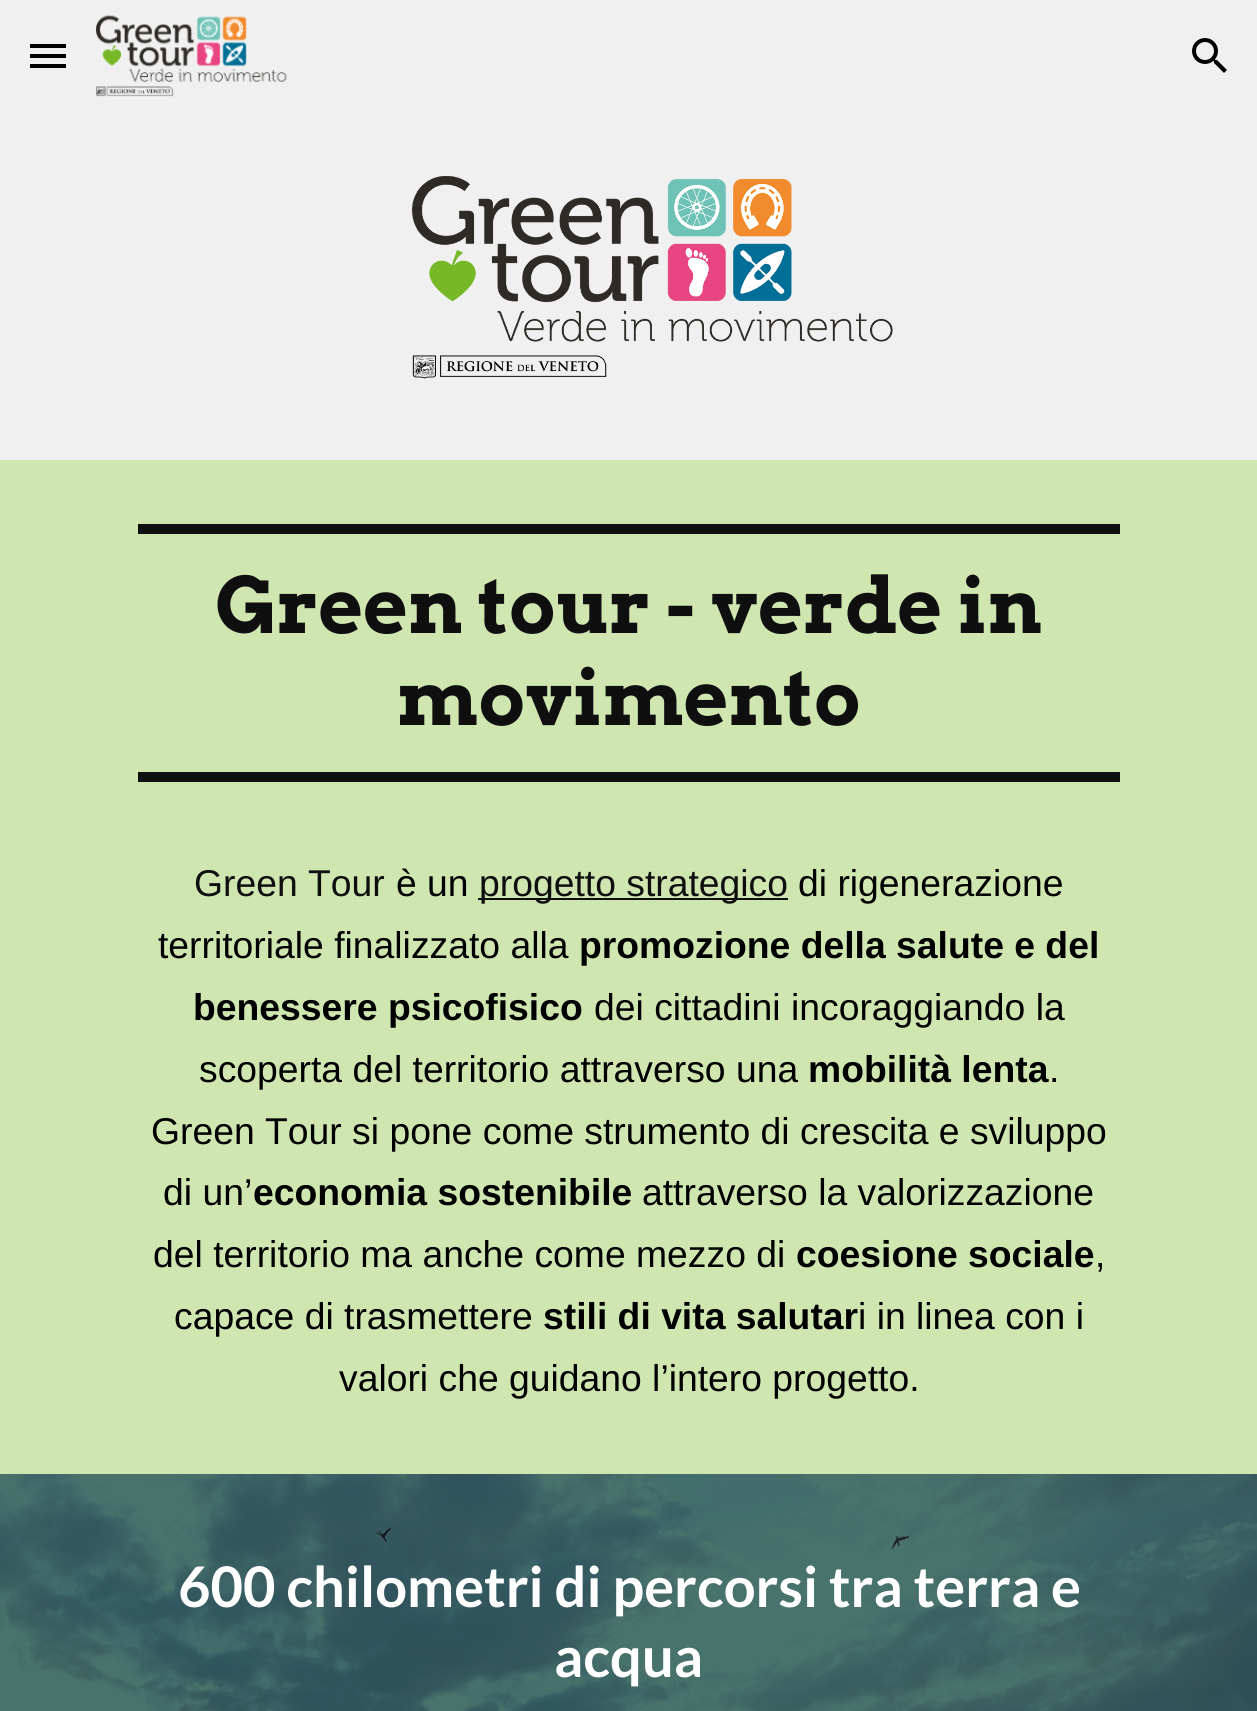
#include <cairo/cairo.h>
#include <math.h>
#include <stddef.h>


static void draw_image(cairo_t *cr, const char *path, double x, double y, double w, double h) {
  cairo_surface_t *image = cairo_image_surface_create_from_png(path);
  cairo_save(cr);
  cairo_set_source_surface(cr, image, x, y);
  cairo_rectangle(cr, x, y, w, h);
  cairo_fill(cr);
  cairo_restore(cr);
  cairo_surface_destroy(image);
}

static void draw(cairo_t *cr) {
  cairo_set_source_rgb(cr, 240 / 255.0, 240 / 255.0, 240 / 255.0);
  cairo_paint(cr);
  cairo_set_source_rgb(cr, 0, 0, 0);
  cairo_rectangle(cr, 30, 44, 36, 4);
  cairo_fill(cr);
  cairo_rectangle(cr, 30, 54, 36, 4);
  cairo_fill(cr);
  cairo_rectangle(cr, 30, 64, 36, 4);
  cairo_fill(cr);
  draw_image(cr, "images/1.png", 96, 15, 191, 82);
  draw_image(cr, "images/2.png", 1192, 38, 35, 35);
  draw_image(cr, "images/3.png", 411, 176, 482, 203);
  cairo_set_source_rgb(cr, 207 / 255.0, 230 / 255.0, 176 / 255.0);
  cairo_rectangle(cr, 0, 460, 1257, 1014);
  cairo_fill(cr);
  cairo_set_source_rgb(cr, 15 / 255.0, 15 / 255.0, 15 / 255.0);
  cairo_rectangle(cr, 138, 524, 982, 10);
  cairo_fill(cr);
  cairo_rectangle(cr, 138, 772, 982, 10);
  cairo_fill(cr);
  cairo_rectangle(cr, 478, 898, 310, 2);
  cairo_fill(cr);
  draw_image(cr, "images/4.png", 0, 1474, 1257, 237);
  cairo_select_font_face(cr, "Arvo", CAIRO_FONT_SLANT_NORMAL, CAIRO_FONT_WEIGHT_BOLD);
  cairo_set_font_size(cr, 77.25);
  cairo_move_to(cr, 215, 633);
  cairo_show_text(cr, "Green tour - verde in");
  cairo_move_to(cr, 397, 725);
  cairo_show_text(cr, "movimento");
  cairo_select_font_face(cr, "Liberation Sans", CAIRO_FONT_SLANT_NORMAL, CAIRO_FONT_WEIGHT_NORMAL);
  cairo_set_font_size(cr, 37.3);
  cairo_move_to(cr, 194, 896);
  cairo_show_text(cr, "Green Tour");
  cairo_set_source_rgb(cr, 0, 0, 0);
  cairo_move_to(cr, 396, 896);
  cairo_show_text(cr, "è un");
  cairo_set_source_rgb(cr, 15 / 255.0, 15 / 255.0, 15 / 255.0);
  cairo_move_to(cr, 479, 896);
  cairo_show_text(cr, "progetto strategico");
  cairo_set_source_rgb(cr, 0, 0, 0);
  cairo_move_to(cr, 798, 896);
  cairo_show_text(cr, "di rigenerazione");
  cairo_move_to(cr, 158, 958);
  cairo_show_text(cr, "territoriale finalizzato alla");
  cairo_select_font_face(cr, "Liberation Sans", CAIRO_FONT_SLANT_NORMAL, CAIRO_FONT_WEIGHT_BOLD);
  cairo_move_to(cr, 579, 958);
  cairo_show_text(cr, "promozione della salute e del");
  cairo_move_to(cr, 193, 1020);
  cairo_show_text(cr, "benessere psicofisico");
  cairo_select_font_face(cr, "Liberation Sans", CAIRO_FONT_SLANT_NORMAL, CAIRO_FONT_WEIGHT_NORMAL);
  cairo_move_to(cr, 594, 1020);
  cairo_show_text(cr, "dei cittadini incoraggiando la");
  cairo_move_to(cr, 199, 1082);
  cairo_show_text(cr, "scoperta del territorio attraverso una");
  cairo_select_font_face(cr, "Liberation Sans", CAIRO_FONT_SLANT_NORMAL, CAIRO_FONT_WEIGHT_BOLD);
  cairo_move_to(cr, 808, 1082);
  cairo_show_text(cr, "mobilità lenta");
  cairo_select_font_face(cr, "Liberation Sans", CAIRO_FONT_SLANT_NORMAL, CAIRO_FONT_WEIGHT_NORMAL);
  cairo_move_to(cr, 1049, 1082);
  cairo_show_text(cr, ".");
  cairo_move_to(cr, 151, 1144);
  cairo_show_text(cr, "Green Tour si pone come strumento di crescita e sviluppo");
  cairo_move_to(cr, 163, 1205);
  cairo_show_text(cr, "di un’");
  cairo_select_font_face(cr, "Liberation Sans", CAIRO_FONT_SLANT_NORMAL, CAIRO_FONT_WEIGHT_BOLD);
  cairo_move_to(cr, 253, 1205);
  cairo_show_text(cr, "economia sostenibile");
  cairo_select_font_face(cr, "Liberation Sans", CAIRO_FONT_SLANT_NORMAL, CAIRO_FONT_WEIGHT_NORMAL);
  cairo_move_to(cr, 642, 1205);
  cairo_show_text(cr, "attraverso la valorizzazione");
  cairo_move_to(cr, 153, 1267);
  cairo_show_text(cr, "del territorio ma anche come mezzo di");
  cairo_select_font_face(cr, "Liberation Sans", CAIRO_FONT_SLANT_NORMAL, CAIRO_FONT_WEIGHT_BOLD);
  cairo_move_to(cr, 796, 1267);
  cairo_show_text(cr, "coesione sociale");
  cairo_select_font_face(cr, "Liberation Sans", CAIRO_FONT_SLANT_NORMAL, CAIRO_FONT_WEIGHT_NORMAL);
  cairo_move_to(cr, 1095, 1267);
  cairo_show_text(cr, ",");
  cairo_move_to(cr, 174, 1329);
  cairo_show_text(cr, "capace di trasmettere");
  cairo_select_font_face(cr, "Liberation Sans", CAIRO_FONT_SLANT_NORMAL, CAIRO_FONT_WEIGHT_BOLD);
  cairo_move_to(cr, 543, 1329);
  cairo_show_text(cr, "stili di vita salutar");
  cairo_select_font_face(cr, "Liberation Sans", CAIRO_FONT_SLANT_NORMAL, CAIRO_FONT_WEIGHT_NORMAL);
  cairo_move_to(cr, 858, 1329);
  cairo_show_text(cr, "i in linea con i");
  cairo_move_to(cr, 339, 1391);
  cairo_show_text(cr, "valori che guidano l’intero progetto.");
  cairo_select_font_face(cr, "Lato", CAIRO_FONT_SLANT_NORMAL, CAIRO_FONT_WEIGHT_BOLD);
  cairo_set_font_size(cr, 56);
  cairo_set_source_rgb(cr, 1, 1, 1);
  cairo_move_to(cr, 178, 1607);
  cairo_show_text(cr, "600 chilometri di percorsi tra terra e");
  cairo_move_to(cr, 554, 1677);
  cairo_show_text(cr, "acqua");
}

int main(void) {
  cairo_surface_t *surface = cairo_image_surface_create(CAIRO_FORMAT_RGB24, 1257, 1711);
  cairo_t *cr = cairo_create(surface);
  cairo_font_options_t *options = cairo_font_options_create();
  cairo_font_options_set_hint_metrics(options, CAIRO_HINT_METRICS_OFF);
  cairo_font_options_set_hint_style(options, CAIRO_HINT_STYLE_NONE);
  cairo_set_font_options(cr, options);
  cairo_set_miter_limit(cr, 4);
  draw(cr);
  cairo_surface_write_to_png(surface, "out.png");
  cairo_font_options_destroy(options);
  cairo_destroy(cr);
  cairo_surface_destroy(surface);
  return 0;
}
